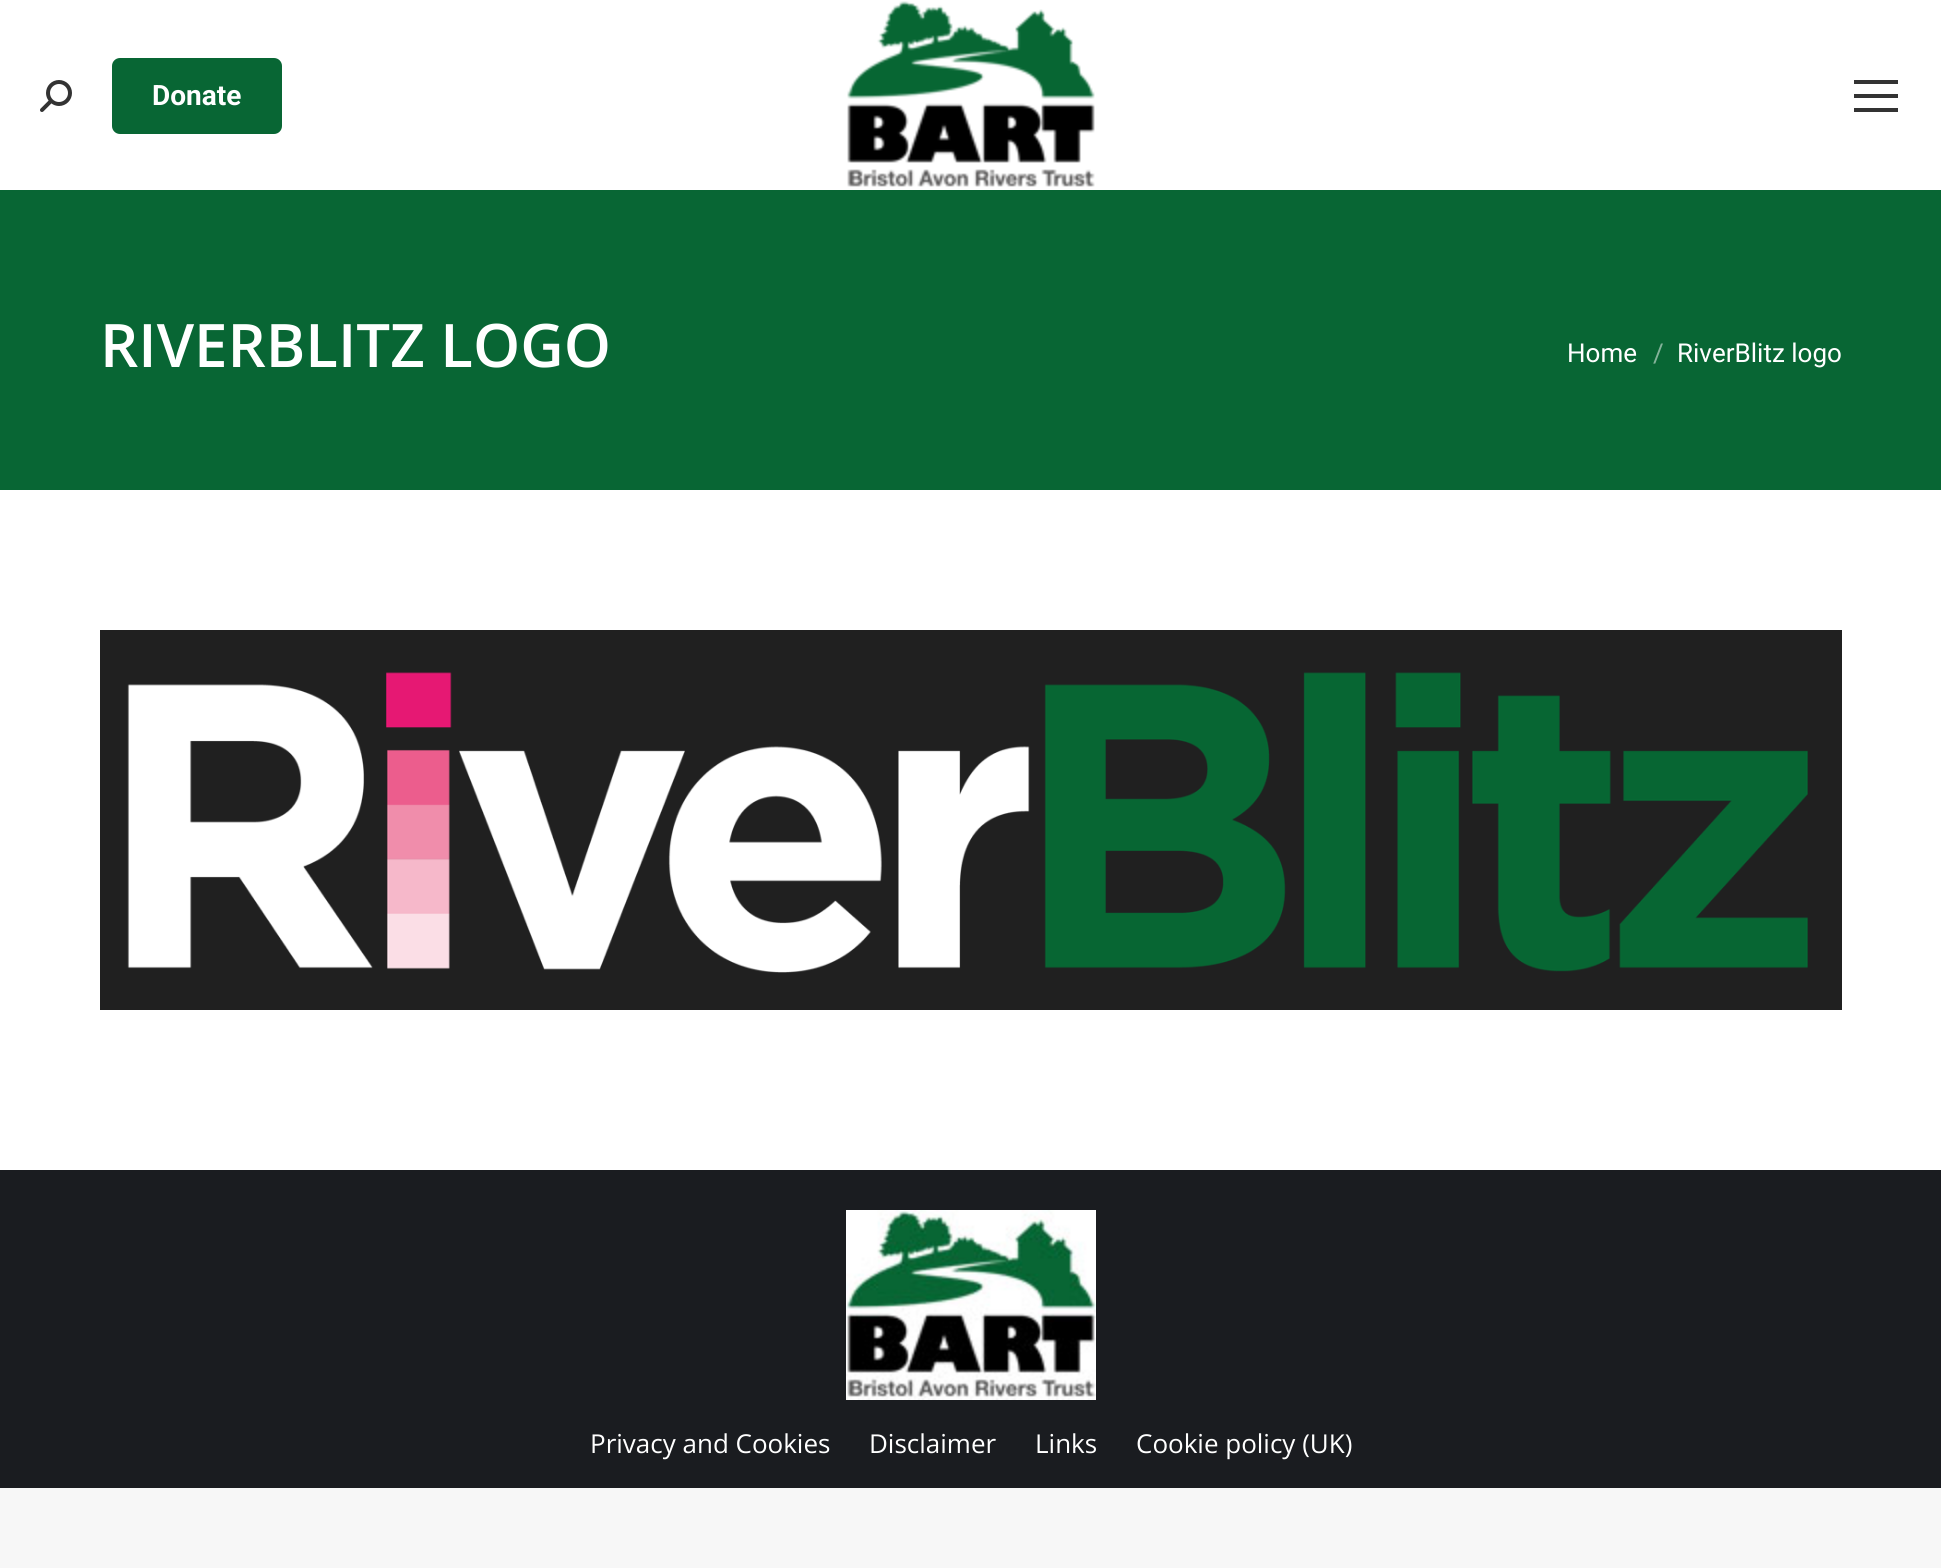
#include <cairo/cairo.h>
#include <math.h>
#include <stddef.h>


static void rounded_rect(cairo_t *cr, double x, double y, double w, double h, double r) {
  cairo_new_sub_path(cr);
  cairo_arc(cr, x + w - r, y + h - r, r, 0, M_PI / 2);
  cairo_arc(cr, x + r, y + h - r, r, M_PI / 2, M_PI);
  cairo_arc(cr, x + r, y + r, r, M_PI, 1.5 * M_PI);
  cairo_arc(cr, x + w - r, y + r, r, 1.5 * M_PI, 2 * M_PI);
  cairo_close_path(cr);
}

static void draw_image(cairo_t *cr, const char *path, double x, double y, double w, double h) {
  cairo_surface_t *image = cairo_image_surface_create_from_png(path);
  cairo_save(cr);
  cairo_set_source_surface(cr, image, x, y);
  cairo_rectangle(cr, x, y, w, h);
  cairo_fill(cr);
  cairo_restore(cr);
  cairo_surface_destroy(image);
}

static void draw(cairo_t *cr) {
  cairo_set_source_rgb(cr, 247 / 255.0, 247 / 255.0, 247 / 255.0);
  cairo_paint(cr);
  cairo_set_source_rgb(cr, 1, 1, 1);
  cairo_rectangle(cr, 0, 0, 1941, 1170);
  cairo_fill(cr);
  draw_image(cr, "images/1.png", 40, 80, 32, 32);
  cairo_set_source_rgb(cr, 8 / 255.0, 102 / 255.0, 52 / 255.0);
  rounded_rect(cr, 113, 59, 168, 74, 7);
  cairo_fill_preserve(cr);
  cairo_stroke(cr);
  draw_image(cr, "images/2.png", 847, 1, 248, 186);
  cairo_set_source_rgb(cr, 51 / 255.0, 51 / 255.0, 51 / 255.0);
  cairo_rectangle(cr, 1854, 80, 44, 4);
  cairo_fill(cr);
  cairo_rectangle(cr, 1854, 94, 44, 4);
  cairo_fill(cr);
  cairo_rectangle(cr, 1854, 108, 44, 4);
  cairo_fill(cr);
  cairo_set_source_rgb(cr, 8 / 255.0, 102 / 255.0, 52 / 255.0);
  cairo_rectangle(cr, 0, 190, 1941, 300);
  cairo_fill(cr);
  draw_image(cr, "images/3.png", 100, 630, 1742, 380);
  cairo_set_source_rgb(cr, 26 / 255.0, 28 / 255.0, 32 / 255.0);
  cairo_rectangle(cr, 0, 1170, 1941, 318);
  cairo_fill(cr);
  draw_image(cr, "images/4.png", 846, 1210, 250, 190);
  cairo_select_font_face(cr, "Roboto", CAIRO_FONT_SLANT_NORMAL, CAIRO_FONT_WEIGHT_BOLD);
  cairo_set_font_size(cr, 28);
  cairo_set_source_rgb(cr, 1, 1, 1);
  cairo_move_to(cr, 152, 105);
  cairo_show_text(cr, "Donate");
  cairo_select_font_face(cr, "Open Sans SemiBold", CAIRO_FONT_SLANT_NORMAL, CAIRO_FONT_WEIGHT_NORMAL);
  cairo_set_font_size(cr, 60);
  cairo_move_to(cr, 100, 367);
  cairo_show_text(cr, "RIVERBLITZ LOGO");
  cairo_select_font_face(cr, "Roboto", CAIRO_FONT_SLANT_NORMAL, CAIRO_FONT_WEIGHT_NORMAL);
  cairo_set_font_size(cr, 26);
  cairo_move_to(cr, 1567, 362);
  cairo_show_text(cr, "Home");
  cairo_set_source_rgb(cr, 132 / 255.0, 179 / 255.0, 154 / 255.0);
  cairo_move_to(cr, 1653, 362);
  cairo_show_text(cr, "/");
  cairo_set_source_rgb(cr, 1, 1, 1);
  cairo_move_to(cr, 1677, 362);
  cairo_show_text(cr, "RiverBlitz logo");
  cairo_select_font_face(cr, "Open Sans", CAIRO_FONT_SLANT_NORMAL, CAIRO_FONT_WEIGHT_NORMAL);
  cairo_move_to(cr, 590, 1453);
  cairo_show_text(cr, "Privacy and Cookies");
  cairo_move_to(cr, 869, 1453);
  cairo_show_text(cr, "Disclaimer");
  cairo_move_to(cr, 1035, 1453);
  cairo_show_text(cr, "Links");
  cairo_move_to(cr, 1136, 1453);
  cairo_show_text(cr, "Cookie policy (UK)");
}

int main(void) {
  cairo_surface_t *surface = cairo_image_surface_create(CAIRO_FORMAT_RGB24, 1941, 1568);
  cairo_t *cr = cairo_create(surface);
  cairo_font_options_t *options = cairo_font_options_create();
  cairo_font_options_set_hint_metrics(options, CAIRO_HINT_METRICS_OFF);
  cairo_font_options_set_hint_style(options, CAIRO_HINT_STYLE_NONE);
  cairo_set_font_options(cr, options);
  cairo_set_miter_limit(cr, 4);
  draw(cr);
  cairo_surface_write_to_png(surface, "out.png");
  cairo_font_options_destroy(options);
  cairo_destroy(cr);
  cairo_surface_destroy(surface);
  return 0;
}
